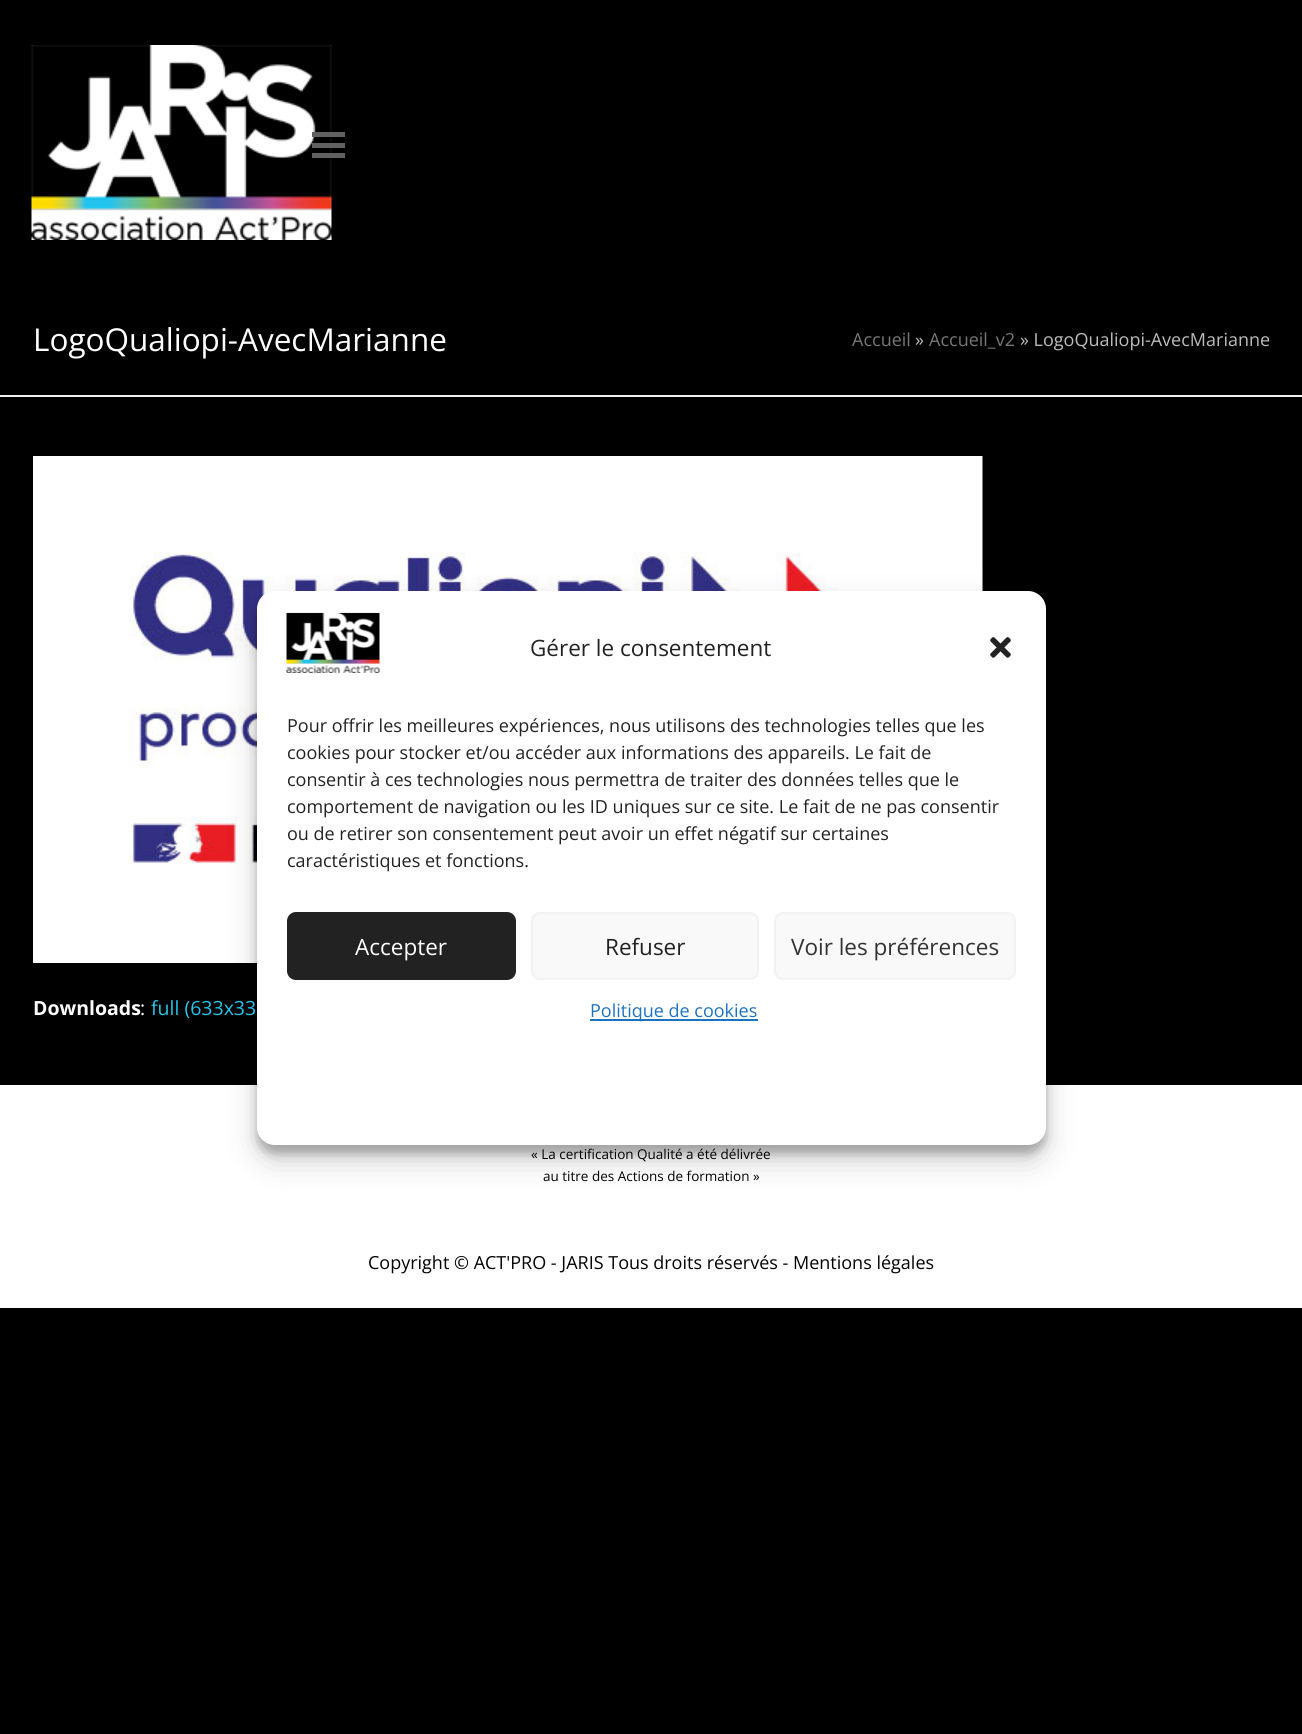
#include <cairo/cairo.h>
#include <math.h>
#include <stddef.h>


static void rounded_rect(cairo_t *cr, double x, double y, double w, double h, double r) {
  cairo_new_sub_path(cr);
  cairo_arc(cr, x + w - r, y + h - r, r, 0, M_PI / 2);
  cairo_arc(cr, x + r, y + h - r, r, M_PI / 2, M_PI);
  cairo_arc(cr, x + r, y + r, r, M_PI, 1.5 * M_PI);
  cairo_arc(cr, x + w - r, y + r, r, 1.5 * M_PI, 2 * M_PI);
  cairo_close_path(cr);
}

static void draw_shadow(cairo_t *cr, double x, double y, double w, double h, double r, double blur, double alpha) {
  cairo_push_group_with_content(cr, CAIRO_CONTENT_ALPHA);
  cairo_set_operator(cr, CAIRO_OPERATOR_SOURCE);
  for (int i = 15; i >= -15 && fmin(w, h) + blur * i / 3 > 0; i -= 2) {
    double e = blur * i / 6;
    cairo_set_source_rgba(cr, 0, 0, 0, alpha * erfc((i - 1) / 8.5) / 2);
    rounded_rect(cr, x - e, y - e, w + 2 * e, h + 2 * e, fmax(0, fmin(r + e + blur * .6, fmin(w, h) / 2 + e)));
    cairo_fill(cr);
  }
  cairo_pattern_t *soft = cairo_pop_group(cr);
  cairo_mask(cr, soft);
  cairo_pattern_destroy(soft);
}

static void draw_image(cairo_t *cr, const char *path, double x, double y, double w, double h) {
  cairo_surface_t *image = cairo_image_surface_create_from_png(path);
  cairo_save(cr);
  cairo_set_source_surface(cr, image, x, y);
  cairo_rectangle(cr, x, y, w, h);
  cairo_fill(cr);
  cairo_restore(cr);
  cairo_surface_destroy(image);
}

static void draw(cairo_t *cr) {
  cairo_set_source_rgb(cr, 0, 0, 0);
  cairo_paint(cr);
  draw_image(cr, "images/1.png", 31, 45, 301, 195);
  cairo_set_source_rgb(cr, 97 / 255.0, 97 / 255.0, 97 / 255.0);
  cairo_rectangle(cr, 312, 143, 33, 5);
  cairo_fill(cr);
  cairo_rectangle(cr, 312, 132, 33, 5);
  cairo_fill(cr);
  cairo_rectangle(cr, 312, 153, 33, 5);
  cairo_fill(cr);
  cairo_set_source_rgb(cr, 238 / 255.0, 238 / 255.0, 238 / 255.0);
  cairo_rectangle(cr, 0, 395, 1302, 2);
  cairo_fill(cr);
  draw_image(cr, "images/2.png", 33, 456, 950, 507);
  cairo_set_source_rgb(cr, 1, 1, 1);
  cairo_rectangle(cr, 0, 1085, 1302, 223);
  cairo_fill(cr);
  cairo_set_source_rgb(cr, 0, 0, 0);
  draw_shadow(cr, 257, 600, 789, 554, 18, 4.5, 0.23);
  draw_shadow(cr, 257, 606, 789, 554, 18, 15, 0.19);
  cairo_set_source_rgb(cr, 1, 1, 1);
  rounded_rect(cr, 257, 591, 789, 554, 18);
  cairo_fill(cr);
  draw_image(cr, "images/3.png", 286, 612, 94, 61);
  draw_image(cr, "images/4.png", 990, 637, 21, 21);
  cairo_set_source_rgb(cr, 34 / 255.0, 34 / 255.0, 34 / 255.0);
  rounded_rect(cr, 288, 913, 227, 66, 8);
  cairo_fill_preserve(cr);
  cairo_stroke(cr);
  cairo_set_source_rgb(cr, 249 / 255.0, 249 / 255.0, 249 / 255.0);
  rounded_rect(cr, 532, 913, 226, 66, 8);
  cairo_fill_preserve(cr);
  cairo_set_source_rgb(cr, 242 / 255.0, 242 / 255.0, 242 / 255.0);
  cairo_stroke(cr);
  cairo_set_source_rgb(cr, 249 / 255.0, 249 / 255.0, 249 / 255.0);
  rounded_rect(cr, 775, 913, 240, 66, 8);
  cairo_fill_preserve(cr);
  cairo_set_source_rgb(cr, 242 / 255.0, 242 / 255.0, 242 / 255.0);
  cairo_stroke(cr);
  cairo_set_source_rgb(cr, 30 / 255.0, 115 / 255.0, 190 / 255.0);
  cairo_rectangle(cr, 590, 1019, 168, 2);
  cairo_fill(cr);
  cairo_select_font_face(cr, "Open Sans", CAIRO_FONT_SLANT_NORMAL, CAIRO_FONT_WEIGHT_NORMAL);
  cairo_set_font_size(cr, 31.5);
  cairo_set_source_rgb(cr, 1, 1, 1);
  cairo_move_to(cr, 33, 351);
  cairo_show_text(cr, "LogoQualiopi-AvecMarianne");
  cairo_set_font_size(cr, 18);
  cairo_set_source_rgb(cr, 119 / 255.0, 119 / 255.0, 119 / 255.0);
  cairo_move_to(cr, 852, 346);
  cairo_show_text(cr, "Accueil");
  cairo_set_source_rgb(cr, 188 / 255.0, 188 / 255.0, 188 / 255.0);
  cairo_move_to(cr, 915, 346);
  cairo_show_text(cr, "»");
  cairo_set_source_rgb(cr, 119 / 255.0, 119 / 255.0, 119 / 255.0);
  cairo_move_to(cr, 929, 346);
  cairo_show_text(cr, "Accueil_v2");
  cairo_set_source_rgb(cr, 188 / 255.0, 188 / 255.0, 188 / 255.0);
  cairo_move_to(cr, 1020, 346);
  cairo_show_text(cr, "» LogoQualiopi-AvecMarianne");
  cairo_select_font_face(cr, "Open Sans", CAIRO_FONT_SLANT_NORMAL, CAIRO_FONT_WEIGHT_BOLD);
  cairo_set_font_size(cr, 19.5);
  cairo_set_source_rgb(cr, 1, 1, 1);
  cairo_move_to(cr, 33, 1015);
  cairo_show_text(cr, "Downloads");
  cairo_select_font_face(cr, "Open Sans", CAIRO_FONT_SLANT_NORMAL, CAIRO_FONT_WEIGHT_NORMAL);
  cairo_move_to(cr, 140, 1015);
  cairo_show_text(cr, ":");
  cairo_set_source_rgb(cr, 42 / 255.0, 196 / 255.0, 231 / 255.0);
  cairo_move_to(cr, 151, 1015);
  cairo_show_text(cr, "full (633x33");
  cairo_set_font_size(cr, 13.5);
  cairo_set_source_rgb(cr, 2 / 255.0, 2 / 255.0, 2 / 255.0);
  cairo_move_to(cr, 531, 1159);
  cairo_show_text(cr, "« La certification Qualité a été délivrée");
  cairo_move_to(cr, 543, 1181);
  cairo_show_text(cr, "au titre des Actions de formation »");
  cairo_set_font_size(cr, 18);
  cairo_move_to(cr, 368, 1269);
  cairo_show_text(cr, "Copyright © ACT'PRO - JARIS Tous droits réservés -");
  cairo_move_to(cr, 793, 1269);
  cairo_show_text(cr, "Mentions légales");
  cairo_set_font_size(cr, 22.5);
  cairo_set_source_rgb(cr, 34 / 255.0, 34 / 255.0, 34 / 255.0);
  cairo_move_to(cr, 530, 656);
  cairo_show_text(cr, "Gérer le consentement");
  cairo_set_font_size(cr, 18);
  cairo_move_to(cr, 287, 732);
  cairo_show_text(cr, "Pour offrir les meilleures expériences, nous utilisons des technologies telles que les");
  cairo_move_to(cr, 287, 759);
  cairo_show_text(cr, "cookies pour stocker et/ou accéder aux informations des appareils. Le fait de");
  cairo_move_to(cr, 287, 786);
  cairo_show_text(cr, "consentir à ces technologies nous permettra de traiter des données telles que le");
  cairo_move_to(cr, 287, 813);
  cairo_show_text(cr, "comportement de navigation ou les ID uniques sur ce site. Le fait de ne pas consentir");
  cairo_move_to(cr, 287, 840);
  cairo_show_text(cr, "ou de retirer son consentement peut avoir un effet négatif sur certaines");
  cairo_move_to(cr, 287, 867);
  cairo_show_text(cr, "caractéristiques et fonctions.");
  cairo_set_font_size(cr, 22.5);
  cairo_set_source_rgb(cr, 1, 1, 1);
  cairo_move_to(cr, 355, 955);
  cairo_show_text(cr, "Accepter");
  cairo_set_source_rgb(cr, 34 / 255.0, 34 / 255.0, 34 / 255.0);
  cairo_move_to(cr, 605, 955);
  cairo_show_text(cr, "Refuser");
  cairo_set_source_rgb(cr, 51 / 255.0, 51 / 255.0, 51 / 255.0);
  cairo_move_to(cr, 791, 955);
  cairo_show_text(cr, "Voir les préférences");
  cairo_set_font_size(cr, 18);
  cairo_set_source_rgb(cr, 30 / 255.0, 115 / 255.0, 190 / 255.0);
  cairo_move_to(cr, 590, 1017);
  cairo_show_text(cr, "Politique de cookies");
}

int main(void) {
  cairo_surface_t *surface = cairo_image_surface_create(CAIRO_FORMAT_RGB24, 1302, 1734);
  cairo_t *cr = cairo_create(surface);
  cairo_font_options_t *options = cairo_font_options_create();
  cairo_font_options_set_hint_metrics(options, CAIRO_HINT_METRICS_OFF);
  cairo_font_options_set_hint_style(options, CAIRO_HINT_STYLE_NONE);
  cairo_set_font_options(cr, options);
  cairo_set_miter_limit(cr, 4);
  draw(cr);
  cairo_surface_write_to_png(surface, "out.png");
  cairo_font_options_destroy(options);
  cairo_destroy(cr);
  cairo_surface_destroy(surface);
  return 0;
}
